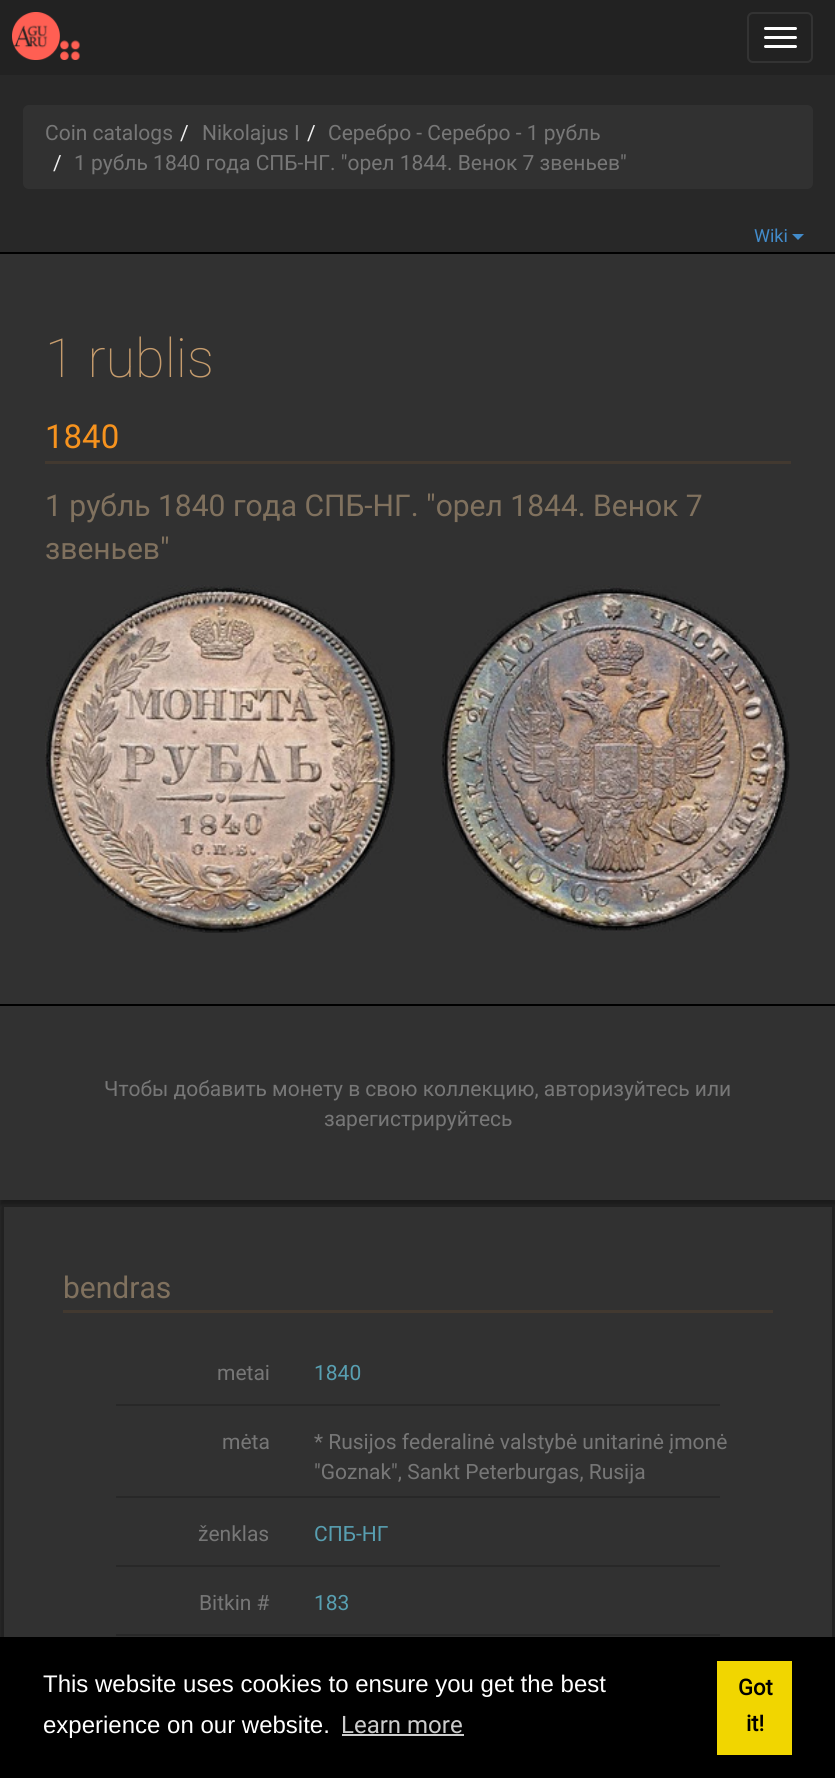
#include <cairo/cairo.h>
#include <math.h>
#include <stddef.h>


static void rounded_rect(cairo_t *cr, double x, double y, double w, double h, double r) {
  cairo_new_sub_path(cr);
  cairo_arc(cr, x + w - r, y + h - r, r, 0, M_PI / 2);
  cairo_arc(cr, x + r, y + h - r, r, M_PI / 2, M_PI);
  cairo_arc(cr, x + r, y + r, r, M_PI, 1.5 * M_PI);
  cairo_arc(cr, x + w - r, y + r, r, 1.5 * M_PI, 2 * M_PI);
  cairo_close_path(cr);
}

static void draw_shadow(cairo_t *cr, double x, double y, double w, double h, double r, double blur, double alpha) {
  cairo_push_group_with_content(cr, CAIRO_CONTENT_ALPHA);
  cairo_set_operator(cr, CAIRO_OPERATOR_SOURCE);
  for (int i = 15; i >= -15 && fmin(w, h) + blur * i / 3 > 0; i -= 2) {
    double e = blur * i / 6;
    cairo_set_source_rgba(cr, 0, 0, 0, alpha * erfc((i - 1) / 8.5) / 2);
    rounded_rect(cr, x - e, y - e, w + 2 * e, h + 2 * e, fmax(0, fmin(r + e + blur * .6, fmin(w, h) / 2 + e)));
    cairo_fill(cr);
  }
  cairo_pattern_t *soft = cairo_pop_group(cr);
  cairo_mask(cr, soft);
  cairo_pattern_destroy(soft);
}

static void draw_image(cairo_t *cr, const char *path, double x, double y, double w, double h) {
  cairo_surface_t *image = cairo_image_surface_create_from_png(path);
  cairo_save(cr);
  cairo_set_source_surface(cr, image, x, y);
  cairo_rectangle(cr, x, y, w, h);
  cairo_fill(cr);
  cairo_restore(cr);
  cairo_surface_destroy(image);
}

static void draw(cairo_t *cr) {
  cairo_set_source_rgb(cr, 40 / 255.0, 40 / 255.0, 40 / 255.0);
  cairo_paint(cr);
  cairo_set_source_rgb(cr, 34 / 255.0, 34 / 255.0, 34 / 255.0);
  cairo_rectangle(cr, 0, 0, 835, 75);
  cairo_fill(cr);
  draw_image(cr, "images/1.png", 12, 12, 68, 48);
  rounded_rect(cr, 748, 13, 64, 49, 5);
  cairo_set_source_rgb(cr, 51 / 255.0, 51 / 255.0, 51 / 255.0);
  cairo_stroke(cr);
  cairo_set_source_rgb(cr, 1, 1, 1);
  rounded_rect(cr, 764, 27, 33, 3, 1.5);
  cairo_fill(cr);
  rounded_rect(cr, 764, 36, 33, 3, 1.5);
  cairo_fill(cr);
  rounded_rect(cr, 764, 45, 33, 3, 1.5);
  cairo_fill(cr);
  cairo_set_source_rgb(cr, 49 / 255.0, 49 / 255.0, 49 / 255.0);
  rounded_rect(cr, 23, 105, 790, 84, 6);
  cairo_fill(cr);
  cairo_set_source_rgb(cr, 66 / 255.0, 139 / 255.0, 202 / 255.0);
  cairo_new_path(cr);
  cairo_move_to(cr, 792, 234);
  cairo_line_to(cr, 804, 234);
  cairo_line_to(cr, 798, 240);
  cairo_close_path(cr);
  cairo_fill(cr);
  cairo_set_source_rgb(cr, 49 / 255.0, 49 / 255.0, 49 / 255.0);
  cairo_rectangle(cr, 0, 254, 835, 750);
  cairo_fill(cr);
  cairo_set_source_rgb(cr, 0, 0, 0);
  cairo_rectangle(cr, 0, 252, 835, 2);
  cairo_fill(cr);
  cairo_set_source_rgb(cr, 66 / 255.0, 57 / 255.0, 48 / 255.0);
  cairo_rectangle(cr, 45, 461, 746, 3);
  cairo_fill(cr);
  draw_image(cr, "images/2.png", 45, 585, 351, 348);
  draw_image(cr, "images/3.png", 441, 585, 349, 347);
  cairo_set_source_rgb(cr, 0, 0, 0);
  draw_shadow(cr, 0, 1008, 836, 197, 0, 2, 0.35);
  cairo_set_source_rgb(cr, 49 / 255.0, 49 / 255.0, 49 / 255.0);
  cairo_rectangle(cr, 0, 1006, 835, 194);
  cairo_fill(cr);
  cairo_set_source_rgb(cr, 0, 0, 0);
  cairo_rectangle(cr, 0, 1004, 835, 2);
  cairo_fill(cr);
  cairo_set_source_rgb(cr, 0, 0, 0);
  draw_shadow(cr, 2, 1209, 832, 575, 0, 2, 0.35);
  cairo_set_source_rgb(cr, 49 / 255.0, 49 / 255.0, 49 / 255.0);
  cairo_rectangle(cr, 4, 1207, 828, 430);
  cairo_fill(cr);
  cairo_rectangle(cr, 3, 1206, 830, 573);
  cairo_set_source_rgb(cr, 33 / 255.0, 33 / 255.0, 33 / 255.0);
  cairo_stroke(cr);
  cairo_set_source_rgb(cr, 66 / 255.0, 57 / 255.0, 48 / 255.0);
  cairo_rectangle(cr, 63, 1310, 710, 3);
  cairo_fill(cr);
  cairo_set_source_rgb(cr, 40 / 255.0, 40 / 255.0, 40 / 255.0);
  cairo_rectangle(cr, 116, 1404, 604, 2);
  cairo_fill(cr);
  cairo_rectangle(cr, 116, 1496, 604, 2);
  cairo_fill(cr);
  cairo_rectangle(cr, 116, 1565, 604, 2);
  cairo_fill(cr);
  cairo_rectangle(cr, 116, 1634, 604, 2);
  cairo_fill(cr);
  cairo_set_source_rgb(cr, 0, 0, 0);
  cairo_rectangle(cr, 0, 1637, 835, 141);
  cairo_fill(cr);
  cairo_set_source_rgb(cr, 204 / 255.0, 204 / 255.0, 204 / 255.0);
  cairo_rectangle(cr, 342, 1734, 122, 2);
  cairo_fill(cr);
  cairo_set_source_rgb(cr, 241 / 255.0, 214 / 255.0, 0);
  cairo_rectangle(cr, 717, 1661, 75, 94);
  cairo_fill(cr);
  cairo_select_font_face(cr, "Roboto", CAIRO_FONT_SLANT_NORMAL, CAIRO_FONT_WEIGHT_NORMAL);
  cairo_set_font_size(cr, 21);
  cairo_set_source_rgb(cr, 119 / 255.0, 119 / 255.0, 119 / 255.0);
  cairo_move_to(cr, 45, 140);
  cairo_show_text(cr, "Coin catalogs");
  cairo_set_source_rgb(cr, 238 / 255.0, 238 / 255.0, 238 / 255.0);
  cairo_move_to(cr, 180, 140);
  cairo_show_text(cr, "/");
  cairo_set_source_rgb(cr, 119 / 255.0, 119 / 255.0, 119 / 255.0);
  cairo_move_to(cr, 202, 140);
  cairo_show_text(cr, "Nikolajus I");
  cairo_set_source_rgb(cr, 238 / 255.0, 238 / 255.0, 238 / 255.0);
  cairo_move_to(cr, 307, 140);
  cairo_show_text(cr, "/");
  cairo_set_source_rgb(cr, 119 / 255.0, 119 / 255.0, 119 / 255.0);
  cairo_move_to(cr, 328, 140);
  cairo_show_text(cr, "Серебро - Серебро - 1 рубль");
  cairo_set_source_rgb(cr, 238 / 255.0, 238 / 255.0, 238 / 255.0);
  cairo_move_to(cr, 53, 170);
  cairo_show_text(cr, "/");
  cairo_set_source_rgb(cr, 119 / 255.0, 119 / 255.0, 119 / 255.0);
  cairo_move_to(cr, 74, 170);
  cairo_show_text(cr, "1 рубль 1840 года СПБ-НГ. \"орел 1844. Венок 7 звеньев\"");
  cairo_set_font_size(cr, 18);
  cairo_set_source_rgb(cr, 66 / 255.0, 139 / 255.0, 202 / 255.0);
  cairo_move_to(cr, 754, 242);
  cairo_show_text(cr, "Wiki");
  cairo_select_font_face(cr, "Roboto Thin", CAIRO_FONT_SLANT_NORMAL, CAIRO_FONT_WEIGHT_NORMAL);
  cairo_set_font_size(cr, 54);
  cairo_set_source_rgb(cr, 198 / 255.0, 156 / 255.0, 109 / 255.0);
  cairo_move_to(cr, 45, 377);
  cairo_show_text(cr, "1 rublis");
  cairo_select_font_face(cr, "Roboto", CAIRO_FONT_SLANT_NORMAL, CAIRO_FONT_WEIGHT_NORMAL);
  cairo_set_font_size(cr, 33);
  cairo_set_source_rgb(cr, 247 / 255.0, 147 / 255.0, 30 / 255.0);
  cairo_move_to(cr, 45, 448);
  cairo_show_text(cr, "1840");
  cairo_set_font_size(cr, 30);
  cairo_set_source_rgb(cr, 128 / 255.0, 113 / 255.0, 94 / 255.0);
  cairo_move_to(cr, 45, 516);
  cairo_show_text(cr, "1 рубль 1840 года СПБ-НГ. \"орел 1844. Венок 7");
  cairo_move_to(cr, 45, 559);
  cairo_show_text(cr, "звеньев\"");
  cairo_set_font_size(cr, 21);
  cairo_set_source_rgb(cr, 119 / 255.0, 119 / 255.0, 119 / 255.0);
  cairo_move_to(cr, 104, 1096);
  cairo_show_text(cr, "Чтобы добавить монету в свою коллекцию, авторизуйтесь или");
  cairo_move_to(cr, 324, 1126);
  cairo_show_text(cr, "зарегистрируйтесь");
  cairo_set_font_size(cr, 30);
  cairo_set_source_rgb(cr, 128 / 255.0, 113 / 255.0, 94 / 255.0);
  cairo_move_to(cr, 63, 1298);
  cairo_show_text(cr, "bendras");
  cairo_set_font_size(cr, 21);
  cairo_set_source_rgb(cr, 119 / 255.0, 119 / 255.0, 119 / 255.0);
  cairo_move_to(cr, 217, 1380);
  cairo_show_text(cr, "metai");
  cairo_set_source_rgb(cr, 88 / 255.0, 159 / 255.0, 177 / 255.0);
  cairo_move_to(cr, 314, 1380);
  cairo_show_text(cr, "1840");
  cairo_set_source_rgb(cr, 119 / 255.0, 119 / 255.0, 119 / 255.0);
  cairo_move_to(cr, 222, 1449);
  cairo_show_text(cr, "mėta");
  cairo_move_to(cr, 314, 1449);
  cairo_show_text(cr, "* Rusijos federalinė valstybė unitarinė įmonė");
  cairo_move_to(cr, 314, 1479);
  cairo_show_text(cr, "\"Goznak\", Sankt Peterburgas, Rusija");
  cairo_move_to(cr, 198, 1541);
  cairo_show_text(cr, "ženklas");
  cairo_set_source_rgb(cr, 88 / 255.0, 159 / 255.0, 177 / 255.0);
  cairo_move_to(cr, 314, 1541);
  cairo_show_text(cr, "СПБ-НГ");
  cairo_set_source_rgb(cr, 119 / 255.0, 119 / 255.0, 119 / 255.0);
  cairo_move_to(cr, 199, 1610);
  cairo_show_text(cr, "Bitkin #");
  cairo_set_source_rgb(cr, 88 / 255.0, 159 / 255.0, 177 / 255.0);
  cairo_move_to(cr, 314, 1610);
  cairo_show_text(cr, "183");
  cairo_select_font_face(cr, "Liberation Sans", CAIRO_FONT_SLANT_NORMAL, CAIRO_FONT_WEIGHT_NORMAL);
  cairo_set_font_size(cr, 24);
  cairo_set_source_rgb(cr, 1, 1, 1);
  cairo_move_to(cr, 43, 1692);
  cairo_show_text(cr, "This website uses cookies to ensure you get the best");
  cairo_move_to(cr, 43, 1733);
  cairo_show_text(cr, "experience on our website.");
  cairo_select_font_face(cr, "Roboto", CAIRO_FONT_SLANT_NORMAL, CAIRO_FONT_WEIGHT_NORMAL);
  cairo_set_source_rgb(cr, 204 / 255.0, 204 / 255.0, 204 / 255.0);
  cairo_move_to(cr, 341, 1733);
  cairo_show_text(cr, "Learn more");
  cairo_select_font_face(cr, "Roboto", CAIRO_FONT_SLANT_NORMAL, CAIRO_FONT_WEIGHT_BOLD);
  cairo_set_font_size(cr, 22);
  cairo_set_source_rgb(cr, 0, 0, 0);
  cairo_move_to(cr, 738, 1695);
  cairo_show_text(cr, "Got");
  cairo_move_to(cr, 746, 1731);
  cairo_show_text(cr, "it!");
}

int main(void) {
  cairo_surface_t *surface = cairo_image_surface_create(CAIRO_FORMAT_RGB24, 835, 1778);
  cairo_t *cr = cairo_create(surface);
  cairo_font_options_t *options = cairo_font_options_create();
  cairo_font_options_set_hint_metrics(options, CAIRO_HINT_METRICS_OFF);
  cairo_font_options_set_hint_style(options, CAIRO_HINT_STYLE_NONE);
  cairo_set_font_options(cr, options);
  cairo_set_miter_limit(cr, 4);
  draw(cr);
  cairo_surface_write_to_png(surface, "out.png");
  cairo_font_options_destroy(options);
  cairo_destroy(cr);
  cairo_surface_destroy(surface);
  return 0;
}
